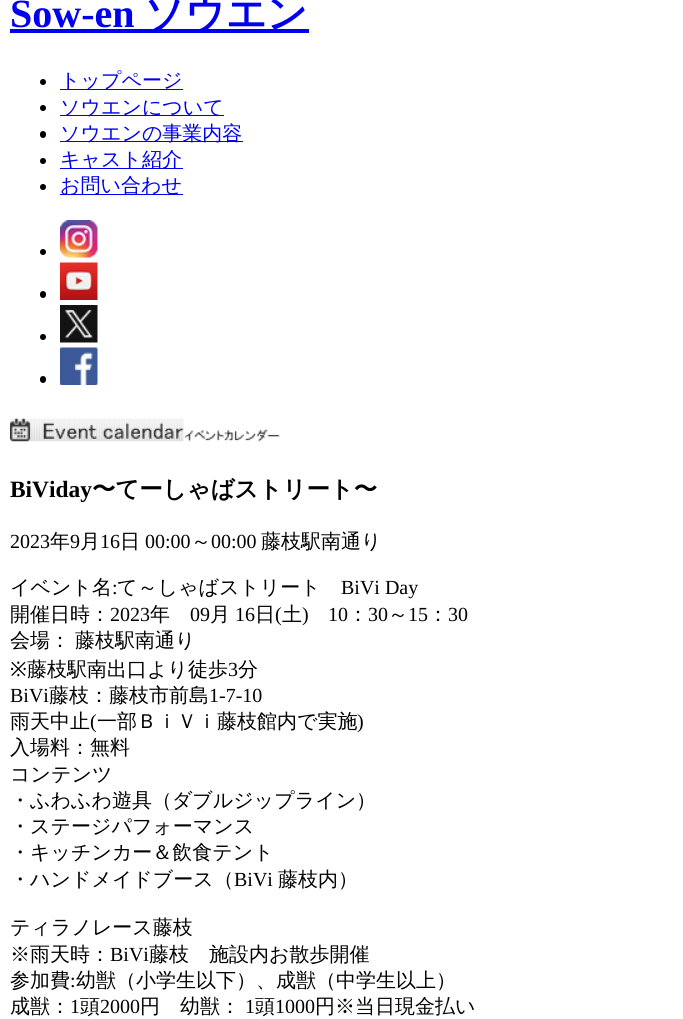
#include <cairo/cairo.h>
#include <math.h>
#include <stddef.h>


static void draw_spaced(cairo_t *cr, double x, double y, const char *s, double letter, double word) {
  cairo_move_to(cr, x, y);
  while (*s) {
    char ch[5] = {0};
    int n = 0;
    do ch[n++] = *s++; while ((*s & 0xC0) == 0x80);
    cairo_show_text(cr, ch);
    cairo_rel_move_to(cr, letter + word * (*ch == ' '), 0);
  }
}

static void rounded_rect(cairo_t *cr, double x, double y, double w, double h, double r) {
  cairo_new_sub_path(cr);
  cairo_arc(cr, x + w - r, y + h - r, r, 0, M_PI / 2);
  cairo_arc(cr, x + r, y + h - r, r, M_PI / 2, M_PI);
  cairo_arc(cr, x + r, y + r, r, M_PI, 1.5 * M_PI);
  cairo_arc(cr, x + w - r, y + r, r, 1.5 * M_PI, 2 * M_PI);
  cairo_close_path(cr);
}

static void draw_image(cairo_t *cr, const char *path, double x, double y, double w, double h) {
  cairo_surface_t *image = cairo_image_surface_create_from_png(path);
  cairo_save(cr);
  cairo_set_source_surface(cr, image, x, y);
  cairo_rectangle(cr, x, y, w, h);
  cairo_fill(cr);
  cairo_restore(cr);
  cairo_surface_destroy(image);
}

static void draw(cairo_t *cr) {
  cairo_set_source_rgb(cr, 1, 1, 1);
  cairo_paint(cr);
  cairo_set_source_rgb(cr, 0, 0, 238 / 255.0);
  cairo_rectangle(cr, 10, 29, 299, 4);
  cairo_fill(cr);
  cairo_set_source_rgb(cr, 0, 0, 0);
  cairo_arc(cr, 43, 82, 3, 0, 2 * M_PI);
  cairo_fill(cr);
  cairo_set_source_rgb(cr, 0, 0, 238 / 255.0);
  cairo_rectangle(cr, 60, 89, 123, 1);
  cairo_fill(cr);
  cairo_set_source_rgb(cr, 0, 0, 0);
  cairo_arc(cr, 43, 108, 3, 0, 2 * M_PI);
  cairo_fill(cr);
  cairo_set_source_rgb(cr, 0, 0, 238 / 255.0);
  cairo_rectangle(cr, 60, 115, 164, 1);
  cairo_fill(cr);
  cairo_set_source_rgb(cr, 0, 0, 0);
  rounded_rect(cr, 40, 131, 6, 7, 3);
  cairo_fill(cr);
  cairo_set_source_rgb(cr, 0, 0, 238 / 255.0);
  cairo_rectangle(cr, 60, 141, 183, 1);
  cairo_fill(cr);
  cairo_set_source_rgb(cr, 0, 0, 0);
  cairo_arc(cr, 43, 161, 3, 0, 2 * M_PI);
  cairo_fill(cr);
  cairo_set_source_rgb(cr, 0, 0, 238 / 255.0);
  cairo_rectangle(cr, 60, 168, 123, 1);
  cairo_fill(cr);
  cairo_set_source_rgb(cr, 0, 0, 0);
  cairo_arc(cr, 43, 187, 3, 0, 2 * M_PI);
  cairo_fill(cr);
  cairo_set_source_rgb(cr, 0, 0, 238 / 255.0);
  cairo_rectangle(cr, 60, 194, 123, 1);
  cairo_fill(cr);
  cairo_set_source_rgb(cr, 0, 0, 0);
  cairo_arc(cr, 43, 252, 3, 0, 2 * M_PI);
  cairo_fill(cr);
  draw_image(cr, "images/1.png", 60, 220, 38, 38);
  rounded_rect(cr, 40, 291, 6, 7, 3);
  cairo_fill(cr);
  draw_image(cr, "images/2.png", 60, 262, 38, 38);
  cairo_arc(cr, 43, 337, 3, 0, 2 * M_PI);
  cairo_fill(cr);
  draw_image(cr, "images/3.png", 60, 305, 38, 38);
  rounded_rect(cr, 40, 376, 6, 7, 3);
  cairo_fill(cr);
  draw_image(cr, "images/4.png", 60, 347, 38, 38);
  draw_image(cr, "images/5.png", 10, 418, 174, 24);
  draw_image(cr, "images/6.png", 184, 428, 96, 14);
  cairo_select_font_face(cr, "Liberation Serif", CAIRO_FONT_SLANT_NORMAL, CAIRO_FONT_WEIGHT_BOLD);
  cairo_set_font_size(cr, 40);
  cairo_set_source_rgb(cr, 0, 0, 238 / 255.0);
  cairo_move_to(cr, 10, 27);
  cairo_show_text(cr, "Sow-en");
  cairo_select_font_face(cr, "WenQuanYi Zen Hei", CAIRO_FONT_SLANT_NORMAL, CAIRO_FONT_WEIGHT_BOLD);
  cairo_move_to(cr, 144, 27);
  cairo_show_text(cr, "ソウエン");
  cairo_select_font_face(cr, "WenQuanYi Zen Hei Medium", CAIRO_FONT_SLANT_NORMAL, CAIRO_FONT_WEIGHT_NORMAL);
  cairo_set_font_size(cr, 20);
  cairo_move_to(cr, 60, 87);
  cairo_show_text(cr, "トップページ");
  cairo_move_to(cr, 60, 114);
  cairo_show_text(cr, "ソウエンについて");
  cairo_move_to(cr, 60, 140);
  cairo_show_text(cr, "ソウエンの事業内容");
  cairo_move_to(cr, 60, 166);
  cairo_show_text(cr, "キャスト紹介");
  cairo_move_to(cr, 60, 192);
  cairo_show_text(cr, "お問い合わせ");
  cairo_select_font_face(cr, "Liberation Serif", CAIRO_FONT_SLANT_NORMAL, CAIRO_FONT_WEIGHT_BOLD);
  cairo_set_font_size(cr, 23.4);
  cairo_set_source_rgb(cr, 0, 0, 0);
  cairo_move_to(cr, 10, 497);
  cairo_show_text(cr, "BiViday");
  cairo_select_font_face(cr, "WenQuanYi Zen Hei", CAIRO_FONT_SLANT_NORMAL, CAIRO_FONT_WEIGHT_BOLD);
  cairo_move_to(cr, 92, 497);
  cairo_show_text(cr, "〜てーしゃばストリート〜");
  cairo_select_font_face(cr, "Liberation Serif", CAIRO_FONT_SLANT_NORMAL, CAIRO_FONT_WEIGHT_NORMAL);
  cairo_set_font_size(cr, 20);
  cairo_move_to(cr, 10, 548);
  cairo_show_text(cr, "2023");
  cairo_select_font_face(cr, "WenQuanYi Zen Hei Medium", CAIRO_FONT_SLANT_NORMAL, CAIRO_FONT_WEIGHT_NORMAL);
  cairo_move_to(cr, 50, 548);
  cairo_show_text(cr, "年");
  cairo_select_font_face(cr, "Liberation Serif", CAIRO_FONT_SLANT_NORMAL, CAIRO_FONT_WEIGHT_NORMAL);
  cairo_move_to(cr, 70, 548);
  cairo_show_text(cr, "9");
  cairo_select_font_face(cr, "WenQuanYi Zen Hei Medium", CAIRO_FONT_SLANT_NORMAL, CAIRO_FONT_WEIGHT_NORMAL);
  cairo_move_to(cr, 80, 548);
  cairo_show_text(cr, "月");
  cairo_select_font_face(cr, "Liberation Serif", CAIRO_FONT_SLANT_NORMAL, CAIRO_FONT_WEIGHT_NORMAL);
  cairo_move_to(cr, 100, 548);
  cairo_show_text(cr, "16");
  cairo_select_font_face(cr, "WenQuanYi Zen Hei Medium", CAIRO_FONT_SLANT_NORMAL, CAIRO_FONT_WEIGHT_NORMAL);
  cairo_move_to(cr, 120, 548);
  cairo_show_text(cr, "日");
  cairo_select_font_face(cr, "Liberation Serif", CAIRO_FONT_SLANT_NORMAL, CAIRO_FONT_WEIGHT_NORMAL);
  cairo_move_to(cr, 145, 548);
  cairo_show_text(cr, "00:00");
  cairo_select_font_face(cr, "WenQuanYi Zen Hei Medium", CAIRO_FONT_SLANT_NORMAL, CAIRO_FONT_WEIGHT_NORMAL);
  cairo_move_to(cr, 191, 548);
  cairo_show_text(cr, "～");
  cairo_select_font_face(cr, "Liberation Serif", CAIRO_FONT_SLANT_NORMAL, CAIRO_FONT_WEIGHT_NORMAL);
  cairo_move_to(cr, 211, 548);
  cairo_show_text(cr, "00:00");
  cairo_select_font_face(cr, "WenQuanYi Zen Hei Medium", CAIRO_FONT_SLANT_NORMAL, CAIRO_FONT_WEIGHT_NORMAL);
  cairo_move_to(cr, 261, 548);
  cairo_show_text(cr, "藤枝駅南通り");
  cairo_move_to(cr, 10, 594);
  cairo_show_text(cr, "イベント名");
  cairo_select_font_face(cr, "Liberation Serif", CAIRO_FONT_SLANT_NORMAL, CAIRO_FONT_WEIGHT_NORMAL);
  cairo_move_to(cr, 112, 594);
  cairo_show_text(cr, ":");
  cairo_select_font_face(cr, "WenQuanYi Zen Hei Medium", CAIRO_FONT_SLANT_NORMAL, CAIRO_FONT_WEIGHT_NORMAL);
  cairo_move_to(cr, 117, 594);
  cairo_show_text(cr, "て～しゃばストリート");
  cairo_select_font_face(cr, "Liberation Serif", CAIRO_FONT_SLANT_NORMAL, CAIRO_FONT_WEIGHT_NORMAL);
  cairo_move_to(cr, 341, 594);
  cairo_show_text(cr, "BiVi Day");
  cairo_select_font_face(cr, "WenQuanYi Zen Hei Medium", CAIRO_FONT_SLANT_NORMAL, CAIRO_FONT_WEIGHT_NORMAL);
  cairo_move_to(cr, 10, 621);
  cairo_show_text(cr, "開催日時：");
  cairo_select_font_face(cr, "Liberation Serif", CAIRO_FONT_SLANT_NORMAL, CAIRO_FONT_WEIGHT_NORMAL);
  cairo_move_to(cr, 110, 621);
  cairo_show_text(cr, "2023");
  cairo_select_font_face(cr, "WenQuanYi Zen Hei Medium", CAIRO_FONT_SLANT_NORMAL, CAIRO_FONT_WEIGHT_NORMAL);
  cairo_move_to(cr, 150, 621);
  cairo_show_text(cr, "年");
  cairo_select_font_face(cr, "Liberation Serif", CAIRO_FONT_SLANT_NORMAL, CAIRO_FONT_WEIGHT_NORMAL);
  cairo_move_to(cr, 190, 621);
  cairo_show_text(cr, "09");
  cairo_select_font_face(cr, "WenQuanYi Zen Hei Medium", CAIRO_FONT_SLANT_NORMAL, CAIRO_FONT_WEIGHT_NORMAL);
  cairo_move_to(cr, 210, 621);
  cairo_show_text(cr, "月");
  cairo_select_font_face(cr, "Liberation Serif", CAIRO_FONT_SLANT_NORMAL, CAIRO_FONT_WEIGHT_NORMAL);
  cairo_move_to(cr, 235, 621);
  cairo_show_text(cr, "16");
  cairo_select_font_face(cr, "WenQuanYi Zen Hei Medium", CAIRO_FONT_SLANT_NORMAL, CAIRO_FONT_WEIGHT_NORMAL);
  cairo_move_to(cr, 255, 621);
  cairo_show_text(cr, "日");
  cairo_select_font_face(cr, "Liberation Serif", CAIRO_FONT_SLANT_NORMAL, CAIRO_FONT_WEIGHT_NORMAL);
  cairo_move_to(cr, 275, 621);
  cairo_show_text(cr, "(");
  cairo_select_font_face(cr, "WenQuanYi Zen Hei Medium", CAIRO_FONT_SLANT_NORMAL, CAIRO_FONT_WEIGHT_NORMAL);
  cairo_move_to(cr, 282, 621);
  cairo_show_text(cr, "土");
  cairo_select_font_face(cr, "Liberation Serif", CAIRO_FONT_SLANT_NORMAL, CAIRO_FONT_WEIGHT_NORMAL);
  cairo_move_to(cr, 302, 621);
  cairo_show_text(cr, ")");
  cairo_move_to(cr, 328, 621);
  cairo_show_text(cr, "10");
  cairo_select_font_face(cr, "WenQuanYi Zen Hei Medium", CAIRO_FONT_SLANT_NORMAL, CAIRO_FONT_WEIGHT_NORMAL);
  cairo_move_to(cr, 348, 621);
  cairo_show_text(cr, "：");
  cairo_select_font_face(cr, "Liberation Serif", CAIRO_FONT_SLANT_NORMAL, CAIRO_FONT_WEIGHT_NORMAL);
  cairo_move_to(cr, 368, 621);
  cairo_show_text(cr, "30");
  cairo_select_font_face(cr, "WenQuanYi Zen Hei Medium", CAIRO_FONT_SLANT_NORMAL, CAIRO_FONT_WEIGHT_NORMAL);
  cairo_move_to(cr, 388, 621);
  cairo_show_text(cr, "～");
  cairo_select_font_face(cr, "Liberation Serif", CAIRO_FONT_SLANT_NORMAL, CAIRO_FONT_WEIGHT_NORMAL);
  cairo_move_to(cr, 408, 621);
  cairo_show_text(cr, "15");
  cairo_select_font_face(cr, "WenQuanYi Zen Hei Medium", CAIRO_FONT_SLANT_NORMAL, CAIRO_FONT_WEIGHT_NORMAL);
  cairo_move_to(cr, 428, 621);
  cairo_show_text(cr, "：");
  cairo_select_font_face(cr, "Liberation Serif", CAIRO_FONT_SLANT_NORMAL, CAIRO_FONT_WEIGHT_NORMAL);
  cairo_move_to(cr, 448, 621);
  cairo_show_text(cr, "30");
  cairo_select_font_face(cr, "WenQuanYi Zen Hei Medium", CAIRO_FONT_SLANT_NORMAL, CAIRO_FONT_WEIGHT_NORMAL);
  draw_spaced(cr, 10, 647, "会場： 藤枝駅南通り", 0, -1);
  cairo_select_font_face(cr, "Noto Sans", CAIRO_FONT_SLANT_NORMAL, CAIRO_FONT_WEIGHT_NORMAL);
  cairo_move_to(cr, 10, 676);
  cairo_show_text(cr, "※");
  cairo_select_font_face(cr, "WenQuanYi Zen Hei Medium", CAIRO_FONT_SLANT_NORMAL, CAIRO_FONT_WEIGHT_NORMAL);
  cairo_move_to(cr, 27, 676);
  cairo_show_text(cr, "藤枝駅南出口より徒歩");
  cairo_select_font_face(cr, "Liberation Serif", CAIRO_FONT_SLANT_NORMAL, CAIRO_FONT_WEIGHT_NORMAL);
  cairo_move_to(cr, 228, 676);
  cairo_show_text(cr, "3");
  cairo_select_font_face(cr, "WenQuanYi Zen Hei Medium", CAIRO_FONT_SLANT_NORMAL, CAIRO_FONT_WEIGHT_NORMAL);
  cairo_move_to(cr, 238, 676);
  cairo_show_text(cr, "分");
  cairo_select_font_face(cr, "Liberation Serif", CAIRO_FONT_SLANT_NORMAL, CAIRO_FONT_WEIGHT_NORMAL);
  cairo_move_to(cr, 10, 702);
  cairo_show_text(cr, "BiVi");
  cairo_select_font_face(cr, "WenQuanYi Zen Hei Medium", CAIRO_FONT_SLANT_NORMAL, CAIRO_FONT_WEIGHT_NORMAL);
  cairo_move_to(cr, 49, 702);
  cairo_show_text(cr, "藤枝：藤枝市前島");
  cairo_select_font_face(cr, "Liberation Serif", CAIRO_FONT_SLANT_NORMAL, CAIRO_FONT_WEIGHT_NORMAL);
  cairo_move_to(cr, 209, 702);
  cairo_show_text(cr, "1-7-10");
  cairo_select_font_face(cr, "WenQuanYi Zen Hei Medium", CAIRO_FONT_SLANT_NORMAL, CAIRO_FONT_WEIGHT_NORMAL);
  cairo_move_to(cr, 10, 728);
  cairo_show_text(cr, "雨天中止");
  cairo_select_font_face(cr, "Liberation Serif", CAIRO_FONT_SLANT_NORMAL, CAIRO_FONT_WEIGHT_NORMAL);
  cairo_move_to(cr, 90, 728);
  cairo_show_text(cr, "(");
  cairo_select_font_face(cr, "WenQuanYi Zen Hei Medium", CAIRO_FONT_SLANT_NORMAL, CAIRO_FONT_WEIGHT_NORMAL);
  cairo_move_to(cr, 97, 728);
  cairo_show_text(cr, "一部ＢｉＶｉ藤枝館内で実施");
  cairo_select_font_face(cr, "Liberation Serif", CAIRO_FONT_SLANT_NORMAL, CAIRO_FONT_WEIGHT_NORMAL);
  cairo_move_to(cr, 357, 728);
  cairo_show_text(cr, ")");
  cairo_select_font_face(cr, "WenQuanYi Zen Hei Medium", CAIRO_FONT_SLANT_NORMAL, CAIRO_FONT_WEIGHT_NORMAL);
  cairo_move_to(cr, 10, 754);
  cairo_show_text(cr, "入場料：無料");
  cairo_move_to(cr, 10, 781);
  cairo_show_text(cr, "コンテンツ");
  cairo_move_to(cr, 10, 807);
  cairo_show_text(cr, "・ふわふわ遊具（ダブルジップライン）");
  cairo_move_to(cr, 10, 833);
  cairo_show_text(cr, "・ステージパフォーマンス");
  cairo_move_to(cr, 10, 859);
  cairo_show_text(cr, "・キッチンカー＆飲食テント");
  cairo_move_to(cr, 10, 886);
  cairo_show_text(cr, "・ハンドメイドブース（");
  cairo_select_font_face(cr, "Liberation Serif", CAIRO_FONT_SLANT_NORMAL, CAIRO_FONT_WEIGHT_NORMAL);
  cairo_move_to(cr, 234, 886);
  cairo_show_text(cr, "BiVi");
  cairo_select_font_face(cr, "WenQuanYi Zen Hei Medium", CAIRO_FONT_SLANT_NORMAL, CAIRO_FONT_WEIGHT_NORMAL);
  cairo_move_to(cr, 278, 886);
  cairo_show_text(cr, "藤枝内）");
  cairo_move_to(cr, 10, 934);
  cairo_show_text(cr, "ティラノレース藤枝");
  cairo_move_to(cr, 10, 961);
  cairo_show_text(cr, "※雨天時：");
  cairo_select_font_face(cr, "Liberation Serif", CAIRO_FONT_SLANT_NORMAL, CAIRO_FONT_WEIGHT_NORMAL);
  cairo_move_to(cr, 110, 961);
  cairo_show_text(cr, "BiVi");
  cairo_select_font_face(cr, "WenQuanYi Zen Hei Medium", CAIRO_FONT_SLANT_NORMAL, CAIRO_FONT_WEIGHT_NORMAL);
  cairo_move_to(cr, 149, 961);
  cairo_show_text(cr, "藤枝　施設内お散歩開催");
  cairo_move_to(cr, 10, 987);
  cairo_show_text(cr, "参加費");
  cairo_select_font_face(cr, "Liberation Serif", CAIRO_FONT_SLANT_NORMAL, CAIRO_FONT_WEIGHT_NORMAL);
  cairo_move_to(cr, 70, 987);
  cairo_show_text(cr, ":");
  cairo_select_font_face(cr, "WenQuanYi Zen Hei Medium", CAIRO_FONT_SLANT_NORMAL, CAIRO_FONT_WEIGHT_NORMAL);
  cairo_move_to(cr, 76, 987);
  cairo_show_text(cr, "幼獣（小学生以下）、成獣（中学生以上）");
  cairo_move_to(cr, 10, 1013);
  cairo_show_text(cr, "成獣：");
  cairo_select_font_face(cr, "Liberation Serif", CAIRO_FONT_SLANT_NORMAL, CAIRO_FONT_WEIGHT_NORMAL);
  cairo_move_to(cr, 70, 1013);
  cairo_show_text(cr, "1");
  cairo_select_font_face(cr, "WenQuanYi Zen Hei Medium", CAIRO_FONT_SLANT_NORMAL, CAIRO_FONT_WEIGHT_NORMAL);
  cairo_move_to(cr, 80, 1013);
  cairo_show_text(cr, "頭");
  cairo_select_font_face(cr, "Liberation Serif", CAIRO_FONT_SLANT_NORMAL, CAIRO_FONT_WEIGHT_NORMAL);
  cairo_move_to(cr, 100, 1013);
  cairo_show_text(cr, "2000");
  cairo_select_font_face(cr, "WenQuanYi Zen Hei Medium", CAIRO_FONT_SLANT_NORMAL, CAIRO_FONT_WEIGHT_NORMAL);
  cairo_move_to(cr, 140, 1013);
  cairo_show_text(cr, "円　幼獣：");
  cairo_select_font_face(cr, "Liberation Serif", CAIRO_FONT_SLANT_NORMAL, CAIRO_FONT_WEIGHT_NORMAL);
  cairo_move_to(cr, 245, 1013);
  cairo_show_text(cr, "1");
  cairo_select_font_face(cr, "WenQuanYi Zen Hei Medium", CAIRO_FONT_SLANT_NORMAL, CAIRO_FONT_WEIGHT_NORMAL);
  cairo_move_to(cr, 255, 1013);
  cairo_show_text(cr, "頭");
  cairo_select_font_face(cr, "Liberation Serif", CAIRO_FONT_SLANT_NORMAL, CAIRO_FONT_WEIGHT_NORMAL);
  cairo_move_to(cr, 275, 1013);
  cairo_show_text(cr, "1000");
  cairo_select_font_face(cr, "WenQuanYi Zen Hei Medium", CAIRO_FONT_SLANT_NORMAL, CAIRO_FONT_WEIGHT_NORMAL);
  cairo_move_to(cr, 315, 1013);
  cairo_show_text(cr, "円※当日現金払い");
}

int main(void) {
  cairo_surface_t *surface = cairo_image_surface_create(CAIRO_FORMAT_RGB24, 683, 1019);
  cairo_t *cr = cairo_create(surface);
  cairo_font_options_t *options = cairo_font_options_create();
  cairo_font_options_set_hint_metrics(options, CAIRO_HINT_METRICS_OFF);
  cairo_font_options_set_hint_style(options, CAIRO_HINT_STYLE_NONE);
  cairo_set_font_options(cr, options);
  cairo_set_miter_limit(cr, 4);
  draw(cr);
  cairo_surface_write_to_png(surface, "out.png");
  cairo_font_options_destroy(options);
  cairo_destroy(cr);
  cairo_surface_destroy(surface);
  return 0;
}
